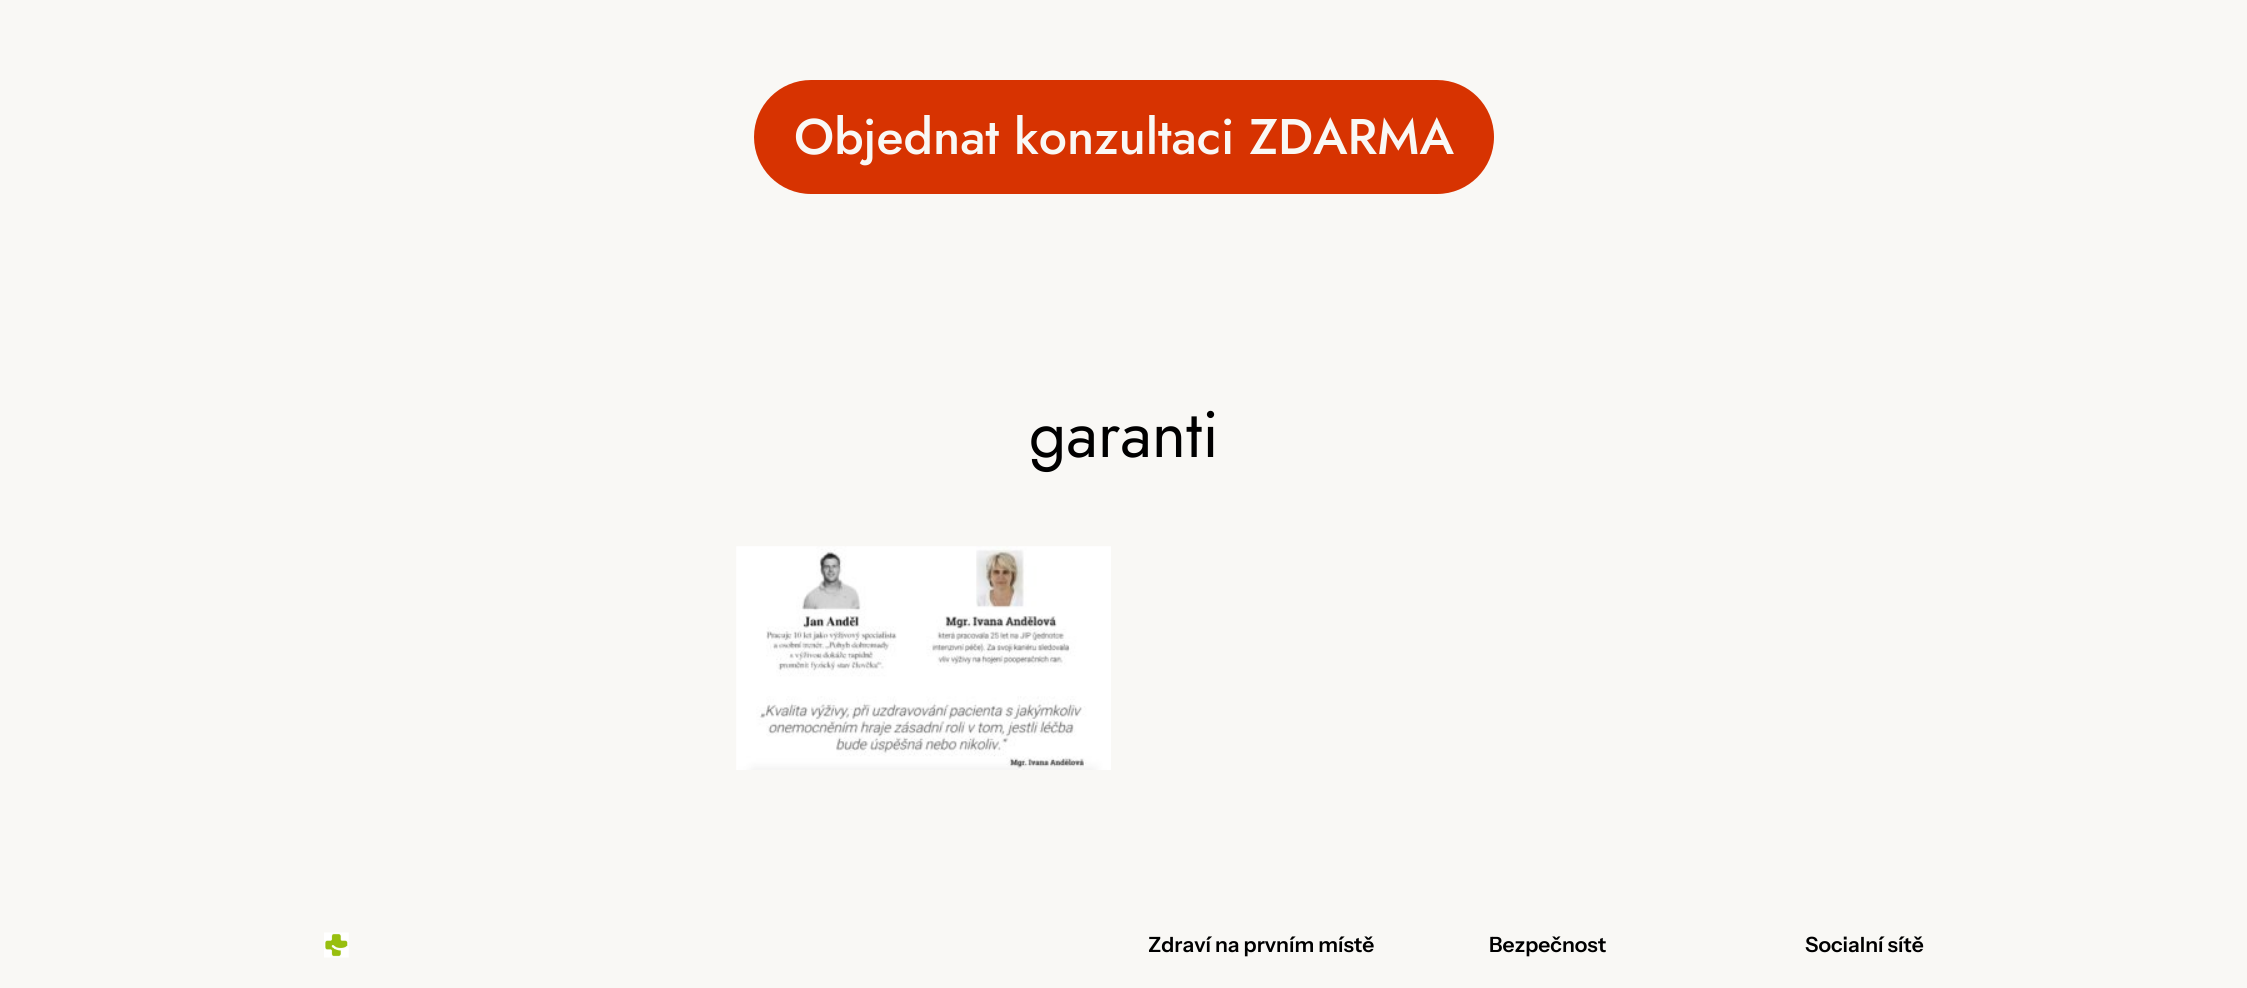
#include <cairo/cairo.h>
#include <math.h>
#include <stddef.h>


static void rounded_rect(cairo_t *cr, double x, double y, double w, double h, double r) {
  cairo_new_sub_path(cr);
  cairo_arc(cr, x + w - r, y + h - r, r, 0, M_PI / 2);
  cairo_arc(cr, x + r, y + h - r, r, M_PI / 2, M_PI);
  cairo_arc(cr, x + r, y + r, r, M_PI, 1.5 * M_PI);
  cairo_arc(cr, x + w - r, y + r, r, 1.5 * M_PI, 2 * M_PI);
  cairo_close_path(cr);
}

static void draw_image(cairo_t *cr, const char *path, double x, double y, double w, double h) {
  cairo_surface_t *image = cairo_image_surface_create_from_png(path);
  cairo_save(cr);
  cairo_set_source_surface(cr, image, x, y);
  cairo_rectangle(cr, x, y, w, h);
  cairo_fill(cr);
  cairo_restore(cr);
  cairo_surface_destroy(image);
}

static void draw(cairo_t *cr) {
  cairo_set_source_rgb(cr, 249 / 255.0, 248 / 255.0, 245 / 255.0);
  cairo_paint(cr);
  cairo_set_source_rgb(cr, 215 / 255.0, 51 / 255.0, 1 / 255.0);
  rounded_rect(cr, 754, 80, 740, 114, 57);
  cairo_fill(cr);
  draw_image(cr, "images/1.png", 736, 546, 375, 224);
  draw_image(cr, "images/2.png", 324, 932, 25, 26);
  cairo_select_font_face(cr, "Jost Medium", CAIRO_FONT_SLANT_NORMAL, CAIRO_FONT_WEIGHT_NORMAL);
  cairo_set_font_size(cr, 50);
  cairo_set_source_rgb(cr, 249 / 255.0, 248 / 255.0, 245 / 255.0);
  cairo_move_to(cr, 794, 154);
  cairo_show_text(cr, "Objednat konzultaci ZDARMA");
  cairo_select_font_face(cr, "Jost", CAIRO_FONT_SLANT_NORMAL, CAIRO_FONT_WEIGHT_NORMAL);
  cairo_set_font_size(cr, 65.5);
  cairo_set_source_rgb(cr, 0, 0, 0);
  cairo_move_to(cr, 1029, 457);
  cairo_show_text(cr, "garanti");
  cairo_select_font_face(cr, "Instrument Sans SemiBold", CAIRO_FONT_SLANT_NORMAL, CAIRO_FONT_WEIGHT_NORMAL);
  cairo_set_font_size(cr, 21);
  cairo_move_to(cr, 1148, 952);
  cairo_show_text(cr, "Zdraví na prvním místě");
  cairo_move_to(cr, 1489, 952);
  cairo_show_text(cr, "Bezpečnost");
  cairo_move_to(cr, 1805, 952);
  cairo_show_text(cr, "Socialní sítě");
}

int main(void) {
  cairo_surface_t *surface = cairo_image_surface_create(CAIRO_FORMAT_RGB24, 2247, 988);
  cairo_t *cr = cairo_create(surface);
  cairo_font_options_t *options = cairo_font_options_create();
  cairo_font_options_set_hint_metrics(options, CAIRO_HINT_METRICS_OFF);
  cairo_font_options_set_hint_style(options, CAIRO_HINT_STYLE_NONE);
  cairo_set_font_options(cr, options);
  cairo_set_miter_limit(cr, 4);
  draw(cr);
  cairo_surface_write_to_png(surface, "out.png");
  cairo_font_options_destroy(options);
  cairo_destroy(cr);
  cairo_surface_destroy(surface);
  return 0;
}
